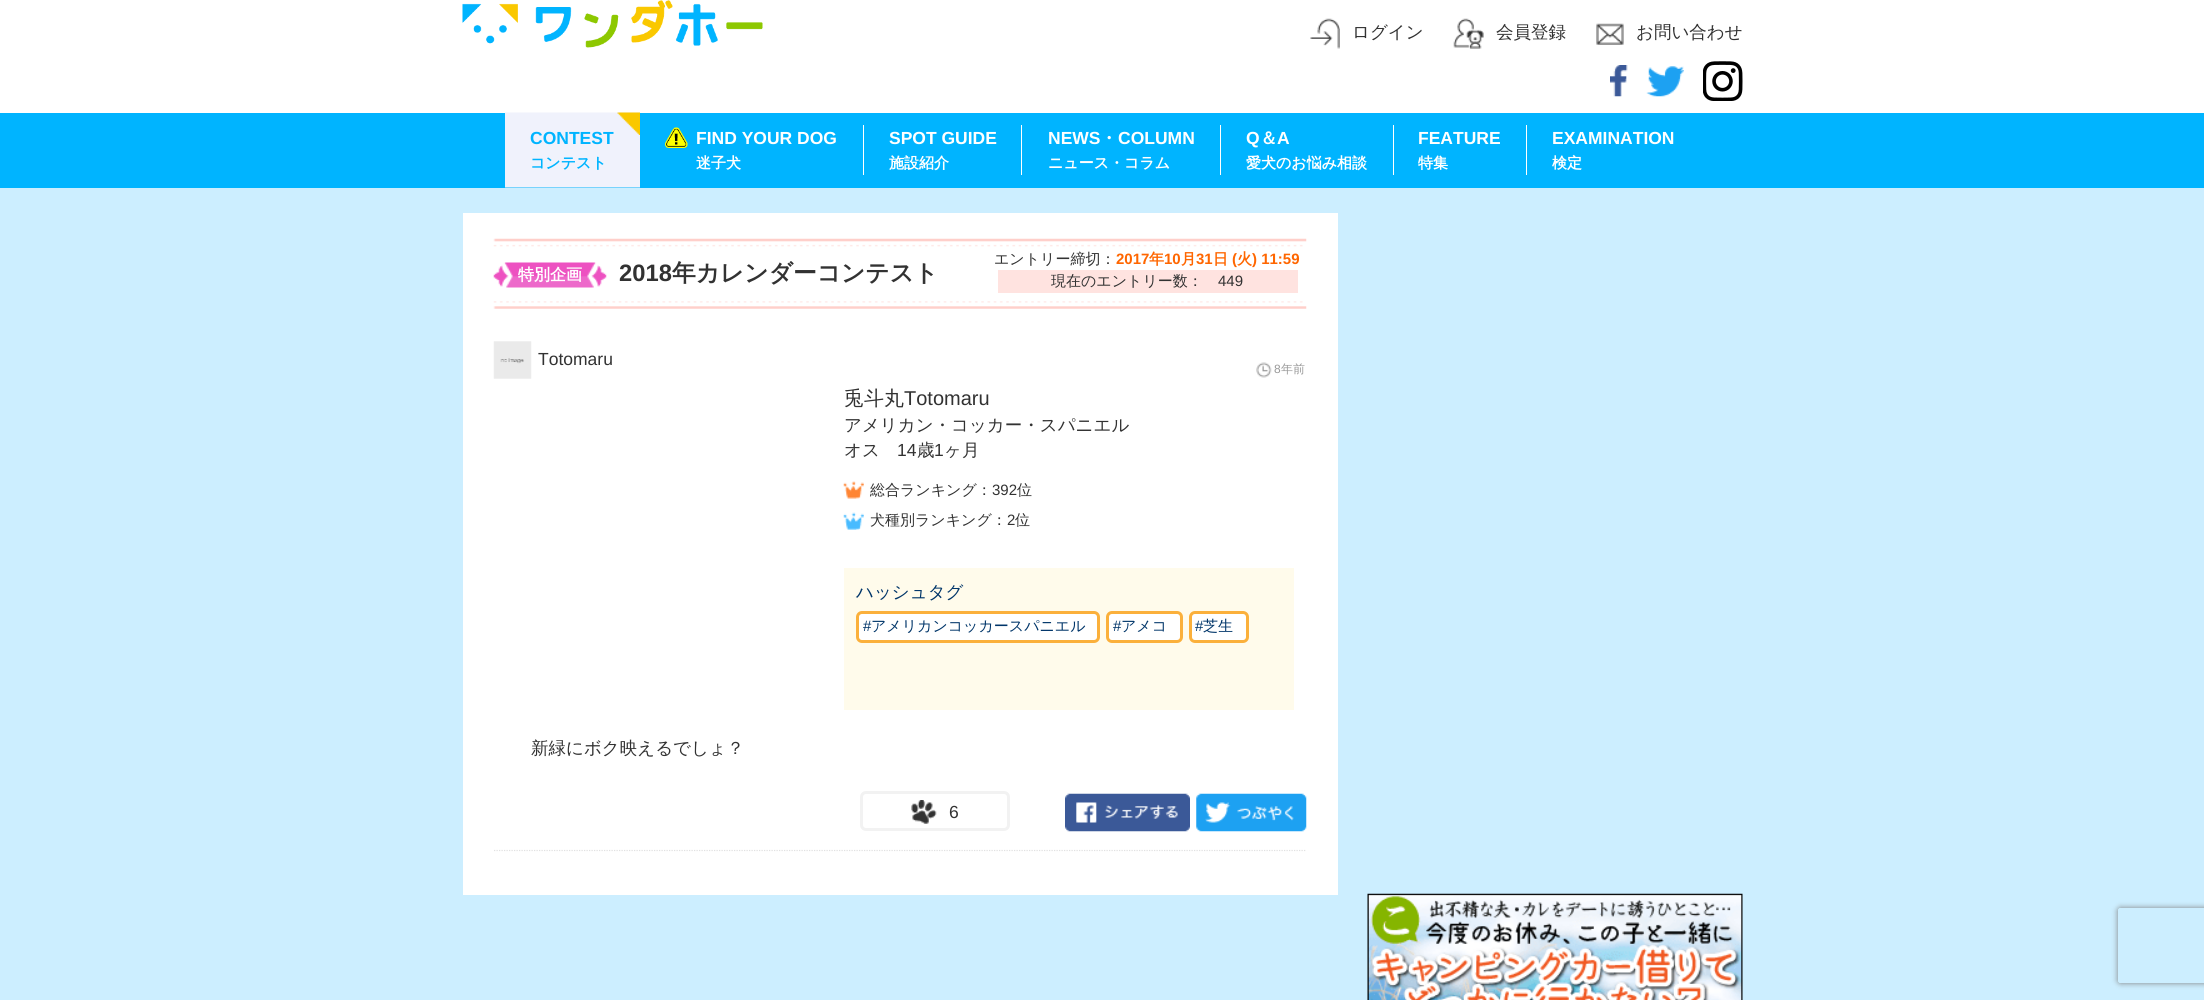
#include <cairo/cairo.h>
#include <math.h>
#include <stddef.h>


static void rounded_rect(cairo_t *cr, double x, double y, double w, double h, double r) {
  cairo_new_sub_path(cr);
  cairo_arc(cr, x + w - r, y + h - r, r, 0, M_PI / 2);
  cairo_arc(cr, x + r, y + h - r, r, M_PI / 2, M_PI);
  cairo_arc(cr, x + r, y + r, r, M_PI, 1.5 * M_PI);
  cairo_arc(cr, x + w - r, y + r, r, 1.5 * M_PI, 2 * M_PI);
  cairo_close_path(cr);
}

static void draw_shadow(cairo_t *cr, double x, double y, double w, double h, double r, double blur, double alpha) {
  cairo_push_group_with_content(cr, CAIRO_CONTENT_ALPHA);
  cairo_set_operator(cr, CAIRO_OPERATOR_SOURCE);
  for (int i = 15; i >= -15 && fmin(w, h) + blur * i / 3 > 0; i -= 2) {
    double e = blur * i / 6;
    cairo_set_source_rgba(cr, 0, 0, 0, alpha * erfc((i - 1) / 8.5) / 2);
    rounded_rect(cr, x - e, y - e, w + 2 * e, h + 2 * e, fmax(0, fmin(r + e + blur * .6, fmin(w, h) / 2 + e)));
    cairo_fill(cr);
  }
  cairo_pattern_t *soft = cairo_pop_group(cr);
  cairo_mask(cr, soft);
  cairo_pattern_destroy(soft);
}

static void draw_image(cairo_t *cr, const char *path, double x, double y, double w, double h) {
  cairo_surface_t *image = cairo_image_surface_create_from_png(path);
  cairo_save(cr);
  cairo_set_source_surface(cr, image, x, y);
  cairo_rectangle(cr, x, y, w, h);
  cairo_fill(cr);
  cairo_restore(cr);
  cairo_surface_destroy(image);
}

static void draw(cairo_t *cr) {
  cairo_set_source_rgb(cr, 1, 1, 1);
  cairo_paint(cr);
  draw_image(cr, "images/1.png", 462, 0, 301, 48);
  draw_image(cr, "images/2.png", 1310, 18, 30, 31);
  draw_image(cr, "images/3.png", 1453, 18, 31, 31);
  draw_image(cr, "images/4.png", 1596, 23, 28, 22);
  draw_image(cr, "images/5.png", 1610, 65, 18, 32);
  draw_image(cr, "images/6.png", 1646, 66, 38, 31);
  draw_image(cr, "images/7.png", 1703, 61, 40, 40);
  cairo_set_source_rgb(cr, 0, 180 / 255.0, 1);
  cairo_rectangle(cr, 0, 113, 2204, 75);
  cairo_fill(cr);
  draw_image(cr, "images/8.png", 505, 112, 135, 76);
  cairo_set_source_rgb(cr, 1, 1, 1);
  cairo_rectangle(cr, 863, 125, 1, 50);
  cairo_fill(cr);
  draw_image(cr, "images/9.png", 665, 127, 23, 21);
  cairo_rectangle(cr, 1021, 125, 1, 50);
  cairo_fill(cr);
  cairo_rectangle(cr, 1220, 125, 1, 50);
  cairo_fill(cr);
  cairo_rectangle(cr, 1393, 125, 1, 50);
  cairo_fill(cr);
  cairo_rectangle(cr, 1526, 125, 1, 50);
  cairo_fill(cr);
  cairo_set_source_rgb(cr, 204 / 255.0, 238 / 255.0, 1);
  cairo_rectangle(cr, 0, 188, 2204, 812);
  cairo_fill(cr);
  cairo_set_source_rgb(cr, 1, 1, 1);
  cairo_rectangle(cr, 463, 213, 875, 682);
  cairo_fill(cr);
  draw_image(cr, "images/10.png", 493, 238, 814, 71);
  draw_image(cr, "images/11.png", 493, 262, 114, 26);
  cairo_set_source_rgb(cr, 1, 227 / 255.0, 224 / 255.0);
  cairo_rectangle(cr, 998, 270, 300, 23);
  cairo_fill(cr);
  draw_image(cr, "images/12.png", 493, 341, 39, 38);
  draw_image(cr, "images/13.png", 1256, 362, 16, 16);
  cairo_new_path(cr);
  cairo_move_to(cr, 494, 850.5);
  cairo_line_to(cr, 1306, 850.5);
  cairo_set_source_rgb(cr, 225 / 255.0, 225 / 255.0, 225 / 255.0);
  cairo_set_line_width(cr, 1.2);
  cairo_set_dash(cr, (double[]){1.25, 1.25}, 2, 0);
  cairo_stroke(cr);
  draw_image(cr, "images/14.png", 843, 481, 21, 18);
  draw_image(cr, "images/15.png", 843, 512, 21, 18);
  cairo_set_source_rgb(cr, 1, 251 / 255.0, 235 / 255.0);
  cairo_rectangle(cr, 844, 568, 450, 142);
  cairo_fill(cr);
  cairo_set_source_rgb(cr, 1, 1, 1);
  rounded_rect(cr, 857.5, 612.5, 241, 29, 4.5);
  cairo_fill_preserve(cr);
  cairo_set_source_rgb(cr, 251 / 255.0, 176 / 255.0, 59 / 255.0);
  cairo_set_line_width(cr, 3);
  cairo_set_dash(cr, NULL, 0, 0);
  cairo_stroke(cr);
  cairo_set_source_rgb(cr, 1, 1, 1);
  rounded_rect(cr, 1107.5, 612.5, 74, 29, 4.5);
  cairo_fill_preserve(cr);
  cairo_set_source_rgb(cr, 251 / 255.0, 176 / 255.0, 59 / 255.0);
  cairo_stroke(cr);
  cairo_set_source_rgb(cr, 1, 1, 1);
  rounded_rect(cr, 1190.5, 612.5, 57, 29, 4.5);
  cairo_fill_preserve(cr);
  cairo_set_source_rgb(cr, 251 / 255.0, 176 / 255.0, 59 / 255.0);
  cairo_stroke(cr);
  rounded_rect(cr, 861.5, 792.5, 147, 37, 4.5);
  cairo_set_source_rgb(cr, 242 / 255.0, 242 / 255.0, 242 / 255.0);
  cairo_stroke(cr);
  draw_image(cr, "images/16.png", 911, 800, 26, 24);
  draw_image(cr, "images/17.png", 1065, 793, 125, 39);
  draw_image(cr, "images/18.png", 1196, 793, 111, 39);
  draw_image(cr, "images/19.png", 1367, 893, 376, 107);
  cairo_save(cr);
  cairo_set_fill_rule(cr, CAIRO_FILL_RULE_EVEN_ODD);
  cairo_new_path(cr);
  cairo_move_to(cr, 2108, 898);
  cairo_line_to(cr, 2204, 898);
  cairo_line_to(cr, 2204, 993);
  cairo_line_to(cr, 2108, 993);
  cairo_close_path(cr);
  cairo_move_to(cr, 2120.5, 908);
  cairo_line_to(cr, 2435.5, 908);
  cairo_curve_to(cr, 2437, 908, 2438, 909, 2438, 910.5);
  cairo_line_to(cr, 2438, 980.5);
  cairo_curve_to(cr, 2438, 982, 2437, 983, 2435.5, 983);
  cairo_line_to(cr, 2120.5, 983);
  cairo_curve_to(cr, 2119, 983, 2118, 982, 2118, 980.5);
  cairo_line_to(cr, 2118, 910.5);
  cairo_curve_to(cr, 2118, 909, 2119, 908, 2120.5, 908);
  cairo_close_path(cr);
  cairo_clip(cr);
  cairo_set_source_rgb(cr, 128 / 255.0, 128 / 255.0, 128 / 255.0);
  draw_shadow(cr, 2118, 908, 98, 75, 2.5, 3, 1);
  cairo_restore(cr);
  cairo_select_font_face(cr, "WenQuanYi Zen Hei Medium", CAIRO_FONT_SLANT_NORMAL, CAIRO_FONT_WEIGHT_NORMAL);
  cairo_set_font_size(cr, 17.5);
  cairo_set_source_rgb(cr, 50 / 255.0, 50 / 255.0, 50 / 255.0);
  cairo_move_to(cr, 1352, 38);
  cairo_show_text(cr, "ログイン");
  cairo_move_to(cr, 1496, 38);
  cairo_show_text(cr, "会員登録");
  cairo_move_to(cr, 1636, 38);
  cairo_show_text(cr, "お問い合わせ");
  cairo_select_font_face(cr, "Liberation Sans", CAIRO_FONT_SLANT_NORMAL, CAIRO_FONT_WEIGHT_BOLD);
  cairo_set_source_rgb(cr, 0, 180 / 255.0, 1);
  cairo_move_to(cr, 530, 144);
  cairo_show_text(cr, "CONTEST");
  cairo_select_font_face(cr, "WenQuanYi Zen Hei", CAIRO_FONT_SLANT_NORMAL, CAIRO_FONT_WEIGHT_BOLD);
  cairo_set_font_size(cr, 15);
  cairo_move_to(cr, 530, 168);
  cairo_show_text(cr, "コンテスト");
  cairo_select_font_face(cr, "Liberation Sans", CAIRO_FONT_SLANT_NORMAL, CAIRO_FONT_WEIGHT_BOLD);
  cairo_set_font_size(cr, 17.5);
  cairo_set_source_rgb(cr, 1, 1, 1);
  cairo_move_to(cr, 696, 144);
  cairo_show_text(cr, "FIND YOUR DOG");
  cairo_select_font_face(cr, "WenQuanYi Zen Hei", CAIRO_FONT_SLANT_NORMAL, CAIRO_FONT_WEIGHT_BOLD);
  cairo_set_font_size(cr, 15);
  cairo_move_to(cr, 696, 168);
  cairo_show_text(cr, "迷子犬");
  cairo_select_font_face(cr, "Liberation Sans", CAIRO_FONT_SLANT_NORMAL, CAIRO_FONT_WEIGHT_BOLD);
  cairo_set_font_size(cr, 17.5);
  cairo_move_to(cr, 889, 144);
  cairo_show_text(cr, "SPOT GUIDE");
  cairo_select_font_face(cr, "WenQuanYi Zen Hei", CAIRO_FONT_SLANT_NORMAL, CAIRO_FONT_WEIGHT_BOLD);
  cairo_set_font_size(cr, 15);
  cairo_move_to(cr, 889, 168);
  cairo_show_text(cr, "施設紹介");
  cairo_select_font_face(cr, "Liberation Sans", CAIRO_FONT_SLANT_NORMAL, CAIRO_FONT_WEIGHT_BOLD);
  cairo_set_font_size(cr, 17.5);
  cairo_move_to(cr, 1048, 144);
  cairo_show_text(cr, "NEWS");
  cairo_select_font_face(cr, "WenQuanYi Zen Hei", CAIRO_FONT_SLANT_NORMAL, CAIRO_FONT_WEIGHT_BOLD);
  cairo_move_to(cr, 1100, 144);
  cairo_show_text(cr, "・");
  cairo_select_font_face(cr, "Liberation Sans", CAIRO_FONT_SLANT_NORMAL, CAIRO_FONT_WEIGHT_BOLD);
  cairo_move_to(cr, 1118, 144);
  cairo_show_text(cr, "COLUMN");
  cairo_select_font_face(cr, "WenQuanYi Zen Hei", CAIRO_FONT_SLANT_NORMAL, CAIRO_FONT_WEIGHT_BOLD);
  cairo_set_font_size(cr, 15);
  cairo_move_to(cr, 1048, 168);
  cairo_show_text(cr, "ニュース・コラム");
  cairo_select_font_face(cr, "Liberation Sans", CAIRO_FONT_SLANT_NORMAL, CAIRO_FONT_WEIGHT_BOLD);
  cairo_set_font_size(cr, 17.5);
  cairo_move_to(cr, 1246, 144);
  cairo_show_text(cr, "Q");
  cairo_select_font_face(cr, "WenQuanYi Zen Hei", CAIRO_FONT_SLANT_NORMAL, CAIRO_FONT_WEIGHT_BOLD);
  cairo_move_to(cr, 1260, 144);
  cairo_show_text(cr, "＆");
  cairo_select_font_face(cr, "Liberation Sans", CAIRO_FONT_SLANT_NORMAL, CAIRO_FONT_WEIGHT_BOLD);
  cairo_move_to(cr, 1277, 144);
  cairo_show_text(cr, "A");
  cairo_select_font_face(cr, "WenQuanYi Zen Hei", CAIRO_FONT_SLANT_NORMAL, CAIRO_FONT_WEIGHT_BOLD);
  cairo_set_font_size(cr, 15);
  cairo_move_to(cr, 1246, 168);
  cairo_show_text(cr, "愛犬のお悩み相談");
  cairo_select_font_face(cr, "Liberation Sans", CAIRO_FONT_SLANT_NORMAL, CAIRO_FONT_WEIGHT_BOLD);
  cairo_set_font_size(cr, 17.5);
  cairo_move_to(cr, 1418, 144);
  cairo_show_text(cr, "FEATURE");
  cairo_select_font_face(cr, "WenQuanYi Zen Hei", CAIRO_FONT_SLANT_NORMAL, CAIRO_FONT_WEIGHT_BOLD);
  cairo_set_font_size(cr, 15);
  cairo_move_to(cr, 1418, 168);
  cairo_show_text(cr, "特集");
  cairo_select_font_face(cr, "Liberation Sans", CAIRO_FONT_SLANT_NORMAL, CAIRO_FONT_WEIGHT_BOLD);
  cairo_set_font_size(cr, 17.5);
  cairo_move_to(cr, 1552, 144);
  cairo_show_text(cr, "EXAMINATION");
  cairo_select_font_face(cr, "WenQuanYi Zen Hei", CAIRO_FONT_SLANT_NORMAL, CAIRO_FONT_WEIGHT_BOLD);
  cairo_set_font_size(cr, 15);
  cairo_move_to(cr, 1552, 168);
  cairo_show_text(cr, "検定");
  cairo_set_font_size(cr, 16);
  cairo_move_to(cr, 518, 280);
  cairo_show_text(cr, "特別企画");
  cairo_select_font_face(cr, "Liberation Sans", CAIRO_FONT_SLANT_NORMAL, CAIRO_FONT_WEIGHT_BOLD);
  cairo_set_font_size(cr, 23.75);
  cairo_set_source_rgb(cr, 50 / 255.0, 50 / 255.0, 50 / 255.0);
  cairo_move_to(cr, 619, 281);
  cairo_show_text(cr, "2018");
  cairo_select_font_face(cr, "WenQuanYi Zen Hei", CAIRO_FONT_SLANT_NORMAL, CAIRO_FONT_WEIGHT_BOLD);
  cairo_move_to(cr, 672, 281);
  cairo_show_text(cr, "年カレンダーコンテスト");
  cairo_select_font_face(cr, "WenQuanYi Zen Hei Medium", CAIRO_FONT_SLANT_NORMAL, CAIRO_FONT_WEIGHT_NORMAL);
  cairo_set_font_size(cr, 15);
  cairo_move_to(cr, 994, 264);
  cairo_show_text(cr, "エントリー締切：");
  cairo_select_font_face(cr, "Liberation Sans", CAIRO_FONT_SLANT_NORMAL, CAIRO_FONT_WEIGHT_BOLD);
  cairo_set_source_rgb(cr, 1, 102 / 255.0, 0);
  cairo_move_to(cr, 1116, 264);
  cairo_show_text(cr, "2017");
  cairo_select_font_face(cr, "WenQuanYi Zen Hei", CAIRO_FONT_SLANT_NORMAL, CAIRO_FONT_WEIGHT_BOLD);
  cairo_move_to(cr, 1149, 264);
  cairo_show_text(cr, "年");
  cairo_select_font_face(cr, "Liberation Sans", CAIRO_FONT_SLANT_NORMAL, CAIRO_FONT_WEIGHT_BOLD);
  cairo_move_to(cr, 1164, 264);
  cairo_show_text(cr, "10");
  cairo_select_font_face(cr, "WenQuanYi Zen Hei", CAIRO_FONT_SLANT_NORMAL, CAIRO_FONT_WEIGHT_BOLD);
  cairo_move_to(cr, 1181, 264);
  cairo_show_text(cr, "月");
  cairo_select_font_face(cr, "Liberation Sans", CAIRO_FONT_SLANT_NORMAL, CAIRO_FONT_WEIGHT_BOLD);
  cairo_move_to(cr, 1196, 264);
  cairo_show_text(cr, "31");
  cairo_select_font_face(cr, "WenQuanYi Zen Hei", CAIRO_FONT_SLANT_NORMAL, CAIRO_FONT_WEIGHT_BOLD);
  cairo_move_to(cr, 1213, 264);
  cairo_show_text(cr, "日");
  cairo_select_font_face(cr, "Liberation Sans", CAIRO_FONT_SLANT_NORMAL, CAIRO_FONT_WEIGHT_BOLD);
  cairo_move_to(cr, 1232, 264);
  cairo_show_text(cr, "(");
  cairo_select_font_face(cr, "WenQuanYi Zen Hei", CAIRO_FONT_SLANT_NORMAL, CAIRO_FONT_WEIGHT_BOLD);
  cairo_move_to(cr, 1237, 264);
  cairo_show_text(cr, "火");
  cairo_select_font_face(cr, "Liberation Sans", CAIRO_FONT_SLANT_NORMAL, CAIRO_FONT_WEIGHT_BOLD);
  cairo_move_to(cr, 1252, 264);
  cairo_show_text(cr, ") 11:59");
  cairo_select_font_face(cr, "WenQuanYi Zen Hei Medium", CAIRO_FONT_SLANT_NORMAL, CAIRO_FONT_WEIGHT_NORMAL);
  cairo_set_source_rgb(cr, 50 / 255.0, 50 / 255.0, 50 / 255.0);
  cairo_move_to(cr, 1051, 286);
  cairo_show_text(cr, "現在のエントリー数：");
  cairo_select_font_face(cr, "Liberation Sans", CAIRO_FONT_SLANT_NORMAL, CAIRO_FONT_WEIGHT_NORMAL);
  cairo_move_to(cr, 1218, 286);
  cairo_show_text(cr, "449");
  cairo_set_font_size(cr, 17.5);
  cairo_move_to(cr, 538, 365);
  cairo_show_text(cr, "Totomaru");
  cairo_set_font_size(cr, 12);
  cairo_set_source_rgb(cr, 153 / 255.0, 153 / 255.0, 153 / 255.0);
  cairo_move_to(cr, 1274, 373);
  cairo_show_text(cr, "8");
  cairo_select_font_face(cr, "WenQuanYi Zen Hei Medium", CAIRO_FONT_SLANT_NORMAL, CAIRO_FONT_WEIGHT_NORMAL);
  cairo_move_to(cr, 1281, 373);
  cairo_show_text(cr, "年前");
  cairo_set_font_size(cr, 20);
  cairo_set_source_rgb(cr, 50 / 255.0, 50 / 255.0, 50 / 255.0);
  cairo_move_to(cr, 844, 405);
  cairo_show_text(cr, "兎斗丸");
  cairo_select_font_face(cr, "Liberation Sans", CAIRO_FONT_SLANT_NORMAL, CAIRO_FONT_WEIGHT_NORMAL);
  cairo_move_to(cr, 904, 405);
  cairo_show_text(cr, "Totomaru");
  cairo_select_font_face(cr, "WenQuanYi Zen Hei Medium", CAIRO_FONT_SLANT_NORMAL, CAIRO_FONT_WEIGHT_NORMAL);
  cairo_set_font_size(cr, 17.5);
  cairo_move_to(cr, 844, 431);
  cairo_show_text(cr, "アメリカン・コッカー・スパニエル");
  cairo_move_to(cr, 844, 456);
  cairo_show_text(cr, "オス");
  cairo_select_font_face(cr, "Liberation Sans", CAIRO_FONT_SLANT_NORMAL, CAIRO_FONT_WEIGHT_NORMAL);
  cairo_move_to(cr, 897, 456);
  cairo_show_text(cr, "14");
  cairo_select_font_face(cr, "WenQuanYi Zen Hei Medium", CAIRO_FONT_SLANT_NORMAL, CAIRO_FONT_WEIGHT_NORMAL);
  cairo_move_to(cr, 917, 456);
  cairo_show_text(cr, "歳");
  cairo_select_font_face(cr, "Liberation Sans", CAIRO_FONT_SLANT_NORMAL, CAIRO_FONT_WEIGHT_NORMAL);
  cairo_move_to(cr, 934, 456);
  cairo_show_text(cr, "1");
  cairo_select_font_face(cr, "WenQuanYi Zen Hei Medium", CAIRO_FONT_SLANT_NORMAL, CAIRO_FONT_WEIGHT_NORMAL);
  cairo_move_to(cr, 944, 456);
  cairo_show_text(cr, "ヶ月");
  cairo_set_font_size(cr, 15);
  cairo_move_to(cr, 870, 495);
  cairo_show_text(cr, "総合ランキング：");
  cairo_select_font_face(cr, "Liberation Sans", CAIRO_FONT_SLANT_NORMAL, CAIRO_FONT_WEIGHT_NORMAL);
  cairo_move_to(cr, 992, 495);
  cairo_show_text(cr, "392");
  cairo_select_font_face(cr, "WenQuanYi Zen Hei Medium", CAIRO_FONT_SLANT_NORMAL, CAIRO_FONT_WEIGHT_NORMAL);
  cairo_move_to(cr, 1017, 495);
  cairo_show_text(cr, "位");
  cairo_move_to(cr, 870, 525);
  cairo_show_text(cr, "犬種別ランキング：");
  cairo_select_font_face(cr, "Liberation Sans", CAIRO_FONT_SLANT_NORMAL, CAIRO_FONT_WEIGHT_NORMAL);
  cairo_move_to(cr, 1007, 525);
  cairo_show_text(cr, "2");
  cairo_select_font_face(cr, "WenQuanYi Zen Hei Medium", CAIRO_FONT_SLANT_NORMAL, CAIRO_FONT_WEIGHT_NORMAL);
  cairo_move_to(cr, 1015, 525);
  cairo_show_text(cr, "位");
  cairo_set_font_size(cr, 17.5);
  cairo_set_source_rgb(cr, 0, 53 / 255.0, 105 / 255.0);
  cairo_move_to(cr, 856, 598);
  cairo_show_text(cr, "ハッシュタグ");
  cairo_select_font_face(cr, "Liberation Sans", CAIRO_FONT_SLANT_NORMAL, CAIRO_FONT_WEIGHT_NORMAL);
  cairo_set_font_size(cr, 15);
  cairo_move_to(cr, 863, 631);
  cairo_show_text(cr, "#");
  cairo_select_font_face(cr, "WenQuanYi Zen Hei Medium", CAIRO_FONT_SLANT_NORMAL, CAIRO_FONT_WEIGHT_NORMAL);
  cairo_move_to(cr, 871, 631);
  cairo_show_text(cr, "アメリカンコッカースパニエル");
  cairo_select_font_face(cr, "Liberation Sans", CAIRO_FONT_SLANT_NORMAL, CAIRO_FONT_WEIGHT_NORMAL);
  cairo_move_to(cr, 1113, 631);
  cairo_show_text(cr, "#");
  cairo_select_font_face(cr, "WenQuanYi Zen Hei Medium", CAIRO_FONT_SLANT_NORMAL, CAIRO_FONT_WEIGHT_NORMAL);
  cairo_move_to(cr, 1121, 631);
  cairo_show_text(cr, "アメコ");
  cairo_select_font_face(cr, "Liberation Sans", CAIRO_FONT_SLANT_NORMAL, CAIRO_FONT_WEIGHT_NORMAL);
  cairo_move_to(cr, 1195, 631);
  cairo_show_text(cr, "#");
  cairo_select_font_face(cr, "WenQuanYi Zen Hei Medium", CAIRO_FONT_SLANT_NORMAL, CAIRO_FONT_WEIGHT_NORMAL);
  cairo_move_to(cr, 1203, 631);
  cairo_show_text(cr, "芝生");
  cairo_set_font_size(cr, 17.5);
  cairo_set_source_rgb(cr, 50 / 255.0, 50 / 255.0, 50 / 255.0);
  cairo_move_to(cr, 531, 754);
  cairo_show_text(cr, "新緑にボク映えるでしょ？");
  cairo_select_font_face(cr, "Liberation Sans", CAIRO_FONT_SLANT_NORMAL, CAIRO_FONT_WEIGHT_NORMAL);
  cairo_move_to(cr, 949, 818);
  cairo_show_text(cr, "6");
}

int main(void) {
  cairo_surface_t *surface = cairo_image_surface_create(CAIRO_FORMAT_RGB24, 2204, 1000);
  cairo_t *cr = cairo_create(surface);
  cairo_font_options_t *options = cairo_font_options_create();
  cairo_font_options_set_hint_metrics(options, CAIRO_HINT_METRICS_OFF);
  cairo_font_options_set_hint_style(options, CAIRO_HINT_STYLE_NONE);
  cairo_set_font_options(cr, options);
  cairo_set_miter_limit(cr, 4);
  draw(cr);
  cairo_surface_write_to_png(surface, "out.png");
  cairo_font_options_destroy(options);
  cairo_destroy(cr);
  cairo_surface_destroy(surface);
  return 0;
}
